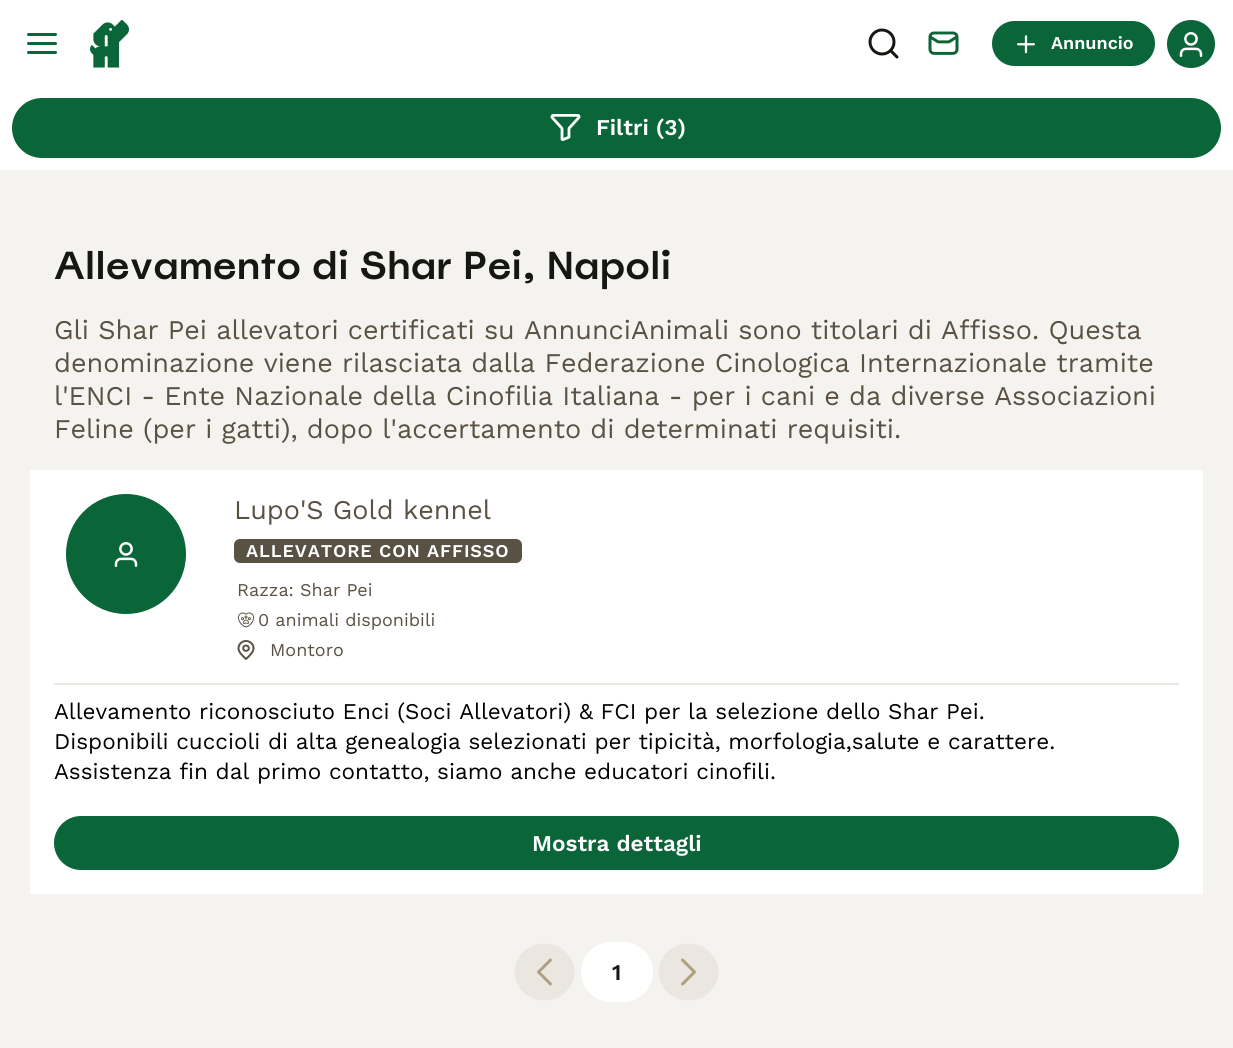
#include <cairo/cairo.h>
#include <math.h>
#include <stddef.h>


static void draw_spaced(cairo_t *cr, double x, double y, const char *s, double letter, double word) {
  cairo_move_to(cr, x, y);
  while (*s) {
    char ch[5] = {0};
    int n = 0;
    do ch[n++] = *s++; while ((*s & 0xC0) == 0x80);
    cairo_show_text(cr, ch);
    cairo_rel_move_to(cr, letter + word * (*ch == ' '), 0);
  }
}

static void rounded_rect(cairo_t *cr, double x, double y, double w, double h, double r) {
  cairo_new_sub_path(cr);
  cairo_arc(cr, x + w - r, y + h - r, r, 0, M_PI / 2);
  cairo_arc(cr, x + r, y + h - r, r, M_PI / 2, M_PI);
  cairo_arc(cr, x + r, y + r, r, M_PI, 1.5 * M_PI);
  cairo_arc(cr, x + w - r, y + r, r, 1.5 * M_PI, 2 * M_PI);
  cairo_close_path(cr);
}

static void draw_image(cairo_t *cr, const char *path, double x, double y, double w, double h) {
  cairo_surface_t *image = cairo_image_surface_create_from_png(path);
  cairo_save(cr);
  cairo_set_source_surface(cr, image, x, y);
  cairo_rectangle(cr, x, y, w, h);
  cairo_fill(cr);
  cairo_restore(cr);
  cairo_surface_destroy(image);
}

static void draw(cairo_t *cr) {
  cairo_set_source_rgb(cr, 245 / 255.0, 243 / 255.0, 240 / 255.0);
  cairo_paint(cr);
  cairo_set_source_rgb(cr, 1, 1, 1);
  cairo_rectangle(cr, 0, 0, 1233, 170);
  cairo_fill(cr);
  draw_image(cr, "images/1.png", 27, 33, 30, 21);
  draw_image(cr, "images/2.png", 90, 20, 39, 48);
  draw_image(cr, "images/3.png", 868, 28, 31, 31);
  draw_image(cr, "images/4.png", 928, 31, 31, 24);
  cairo_set_source_rgb(cr, 10 / 255.0, 102 / 255.0, 56 / 255.0);
  rounded_rect(cr, 992, 21, 163, 45, 22.5);
  cairo_fill(cr);
  draw_image(cr, "images/5.png", 1017, 35, 18, 19);
  cairo_arc(cr, 1191, 44, 24, 0, 2 * M_PI);
  cairo_fill(cr);
  draw_image(cr, "images/6.png", 1179, 32, 24, 25);
  rounded_rect(cr, 12, 98, 1209, 60, 30);
  cairo_fill(cr);
  draw_image(cr, "images/7.png", 550, 114, 31, 27);
  cairo_set_source_rgb(cr, 1, 1, 1);
  cairo_rectangle(cr, 30, 470, 1173, 424);
  cairo_fill(cr);
  cairo_set_source_rgb(cr, 10 / 255.0, 102 / 255.0, 56 / 255.0);
  cairo_arc(cr, 126, 554, 60, 0, 2 * M_PI);
  cairo_fill(cr);
  draw_image(cr, "images/6.png", 114, 542, 24, 25);
  cairo_set_source_rgb(cr, 89 / 255.0, 81 / 255.0, 67 / 255.0);
  rounded_rect(cr, 234, 539, 288, 24, 6);
  cairo_fill(cr);
  draw_image(cr, "images/8.png", 238, 612, 16, 16);
  draw_image(cr, "images/9.png", 237, 640, 18, 20);
  cairo_set_source_rgb(cr, 235 / 255.0, 230 / 255.0, 223 / 255.0);
  cairo_rectangle(cr, 54, 683, 1125, 2);
  cairo_fill(cr);
  cairo_set_source_rgb(cr, 10 / 255.0, 102 / 255.0, 56 / 255.0);
  rounded_rect(cr, 54, 816, 1125, 54, 27);
  cairo_fill(cr);
  cairo_set_source_rgb(cr, 235 / 255.0, 230 / 255.0, 223 / 255.0);
  cairo_new_path(cr);
  cairo_move_to(cr, 544.5, 943.5);
  cairo_curve_to(cr, 561, 943.5, 574.5, 956.5, 574.5, 972);
  cairo_curve_to(cr, 574.5, 987.5, 561, 1000.5, 544.5, 1000.5);
  cairo_curve_to(cr, 528, 1000.5, 514.5, 987.5, 514.5, 972);
  cairo_curve_to(cr, 514.5, 956.5, 528, 943.5, 544.5, 943.5);
  cairo_close_path(cr);
  cairo_fill(cr);
  draw_image(cr, "images/10.png", 537, 958, 15, 28);
  cairo_set_source_rgb(cr, 1, 1, 1);
  rounded_rect(cr, 581, 942, 72, 60, 30);
  cairo_fill(cr);
  cairo_set_source_rgb(cr, 235 / 255.0, 230 / 255.0, 223 / 255.0);
  cairo_new_path(cr);
  cairo_move_to(cr, 688.5, 943.5);
  cairo_curve_to(cr, 705, 943.5, 718.5, 956.5, 718.5, 972);
  cairo_curve_to(cr, 718.5, 987.5, 705, 1000.5, 688.5, 1000.5);
  cairo_curve_to(cr, 672, 1000.5, 658.5, 987.5, 658.5, 972);
  cairo_curve_to(cr, 658.5, 956.5, 672, 943.5, 688.5, 943.5);
  cairo_close_path(cr);
  cairo_fill(cr);
  draw_image(cr, "images/11.png", 681, 958, 15, 28);
  cairo_select_font_face(cr, "Work Sans SemiBold", CAIRO_FONT_SLANT_NORMAL, CAIRO_FONT_WEIGHT_NORMAL);
  cairo_set_font_size(cr, 18);
  cairo_set_source_rgb(cr, 1, 1, 1);
  cairo_move_to(cr, 1051, 49);
  cairo_show_text(cr, "Annuncio");
  cairo_set_font_size(cr, 22.5);
  cairo_move_to(cr, 596, 135);
  cairo_show_text(cr, "Filtri (3)");
  cairo_select_font_face(cr, "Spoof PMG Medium", CAIRO_FONT_SLANT_NORMAL, CAIRO_FONT_WEIGHT_NORMAL);
  cairo_set_font_size(cr, 39);
  cairo_set_source_rgb(cr, 23 / 255.0, 23 / 255.0, 17 / 255.0);
  cairo_move_to(cr, 54, 279);
  cairo_show_text(cr, "Allevamento di Shar Pei, Napoli");
  cairo_select_font_face(cr, "Work Sans", CAIRO_FONT_SLANT_NORMAL, CAIRO_FONT_WEIGHT_NORMAL);
  cairo_set_font_size(cr, 27);
  cairo_set_source_rgb(cr, 89 / 255.0, 81 / 255.0, 67 / 255.0);
  cairo_move_to(cr, 54, 339);
  cairo_show_text(cr, "Gli Shar Pei allevatori certificati su AnnunciAnimali sono titolari di Affisso. Questa");
  cairo_move_to(cr, 54, 372);
  cairo_show_text(cr, "denominazione viene rilasciata dalla Federazione Cinologica Internazionale tramite");
  cairo_move_to(cr, 54, 405);
  cairo_show_text(cr, "l'ENCI - Ente Nazionale della Cinofilia Italiana - per i cani e da diverse Associazioni");
  cairo_move_to(cr, 54, 438);
  cairo_show_text(cr, "Feline (per i gatti), dopo l'accertamento di determinati requisiti.");
  cairo_move_to(cr, 234, 519);
  cairo_show_text(cr, "Lupo'S Gold kennel");
  cairo_select_font_face(cr, "Work Sans SemiBold", CAIRO_FONT_SLANT_NORMAL, CAIRO_FONT_WEIGHT_NORMAL);
  cairo_set_font_size(cr, 18);
  cairo_set_source_rgb(cr, 1, 1, 1);
  draw_spaced(cr, 246, 557, "ALLEVATORE CON AFFISSO", 0.9, 0);
  cairo_select_font_face(cr, "Work Sans", CAIRO_FONT_SLANT_NORMAL, CAIRO_FONT_WEIGHT_NORMAL);
  cairo_set_source_rgb(cr, 89 / 255.0, 81 / 255.0, 67 / 255.0);
  cairo_move_to(cr, 237, 596);
  cairo_show_text(cr, "Razza: Shar Pei");
  cairo_move_to(cr, 258, 626);
  cairo_show_text(cr, "0 animali disponibili");
  cairo_move_to(cr, 270, 656);
  cairo_show_text(cr, "Montoro");
  cairo_set_font_size(cr, 22.5);
  cairo_set_source_rgb(cr, 0, 0, 0);
  cairo_move_to(cr, 54, 719);
  cairo_show_text(cr, "Allevamento riconosciuto Enci (Soci Allevatori) & FCI per la selezione dello Shar Pei.");
  cairo_move_to(cr, 54, 749);
  cairo_show_text(cr, "Disponibili cuccioli di alta genealogia selezionati per tipicità, morfologia,salute e carattere.");
  cairo_move_to(cr, 54, 779);
  cairo_show_text(cr, "Assistenza fin dal primo contatto, siamo anche educatori cinofili.");
  cairo_select_font_face(cr, "Work Sans SemiBold", CAIRO_FONT_SLANT_NORMAL, CAIRO_FONT_WEIGHT_NORMAL);
  cairo_set_source_rgb(cr, 1, 1, 1);
  cairo_move_to(cr, 532, 851);
  cairo_show_text(cr, "Mostra dettagli");
  cairo_set_source_rgb(cr, 23 / 255.0, 23 / 255.0, 17 / 255.0);
  cairo_move_to(cr, 612, 980);
  cairo_show_text(cr, "1");
}

int main(void) {
  cairo_surface_t *surface = cairo_image_surface_create(CAIRO_FORMAT_RGB24, 1233, 1048);
  cairo_t *cr = cairo_create(surface);
  cairo_font_options_t *options = cairo_font_options_create();
  cairo_font_options_set_hint_metrics(options, CAIRO_HINT_METRICS_OFF);
  cairo_font_options_set_hint_style(options, CAIRO_HINT_STYLE_NONE);
  cairo_set_font_options(cr, options);
  cairo_set_miter_limit(cr, 4);
  draw(cr);
  cairo_surface_write_to_png(surface, "out.png");
  cairo_font_options_destroy(options);
  cairo_destroy(cr);
  cairo_surface_destroy(surface);
  return 0;
}
